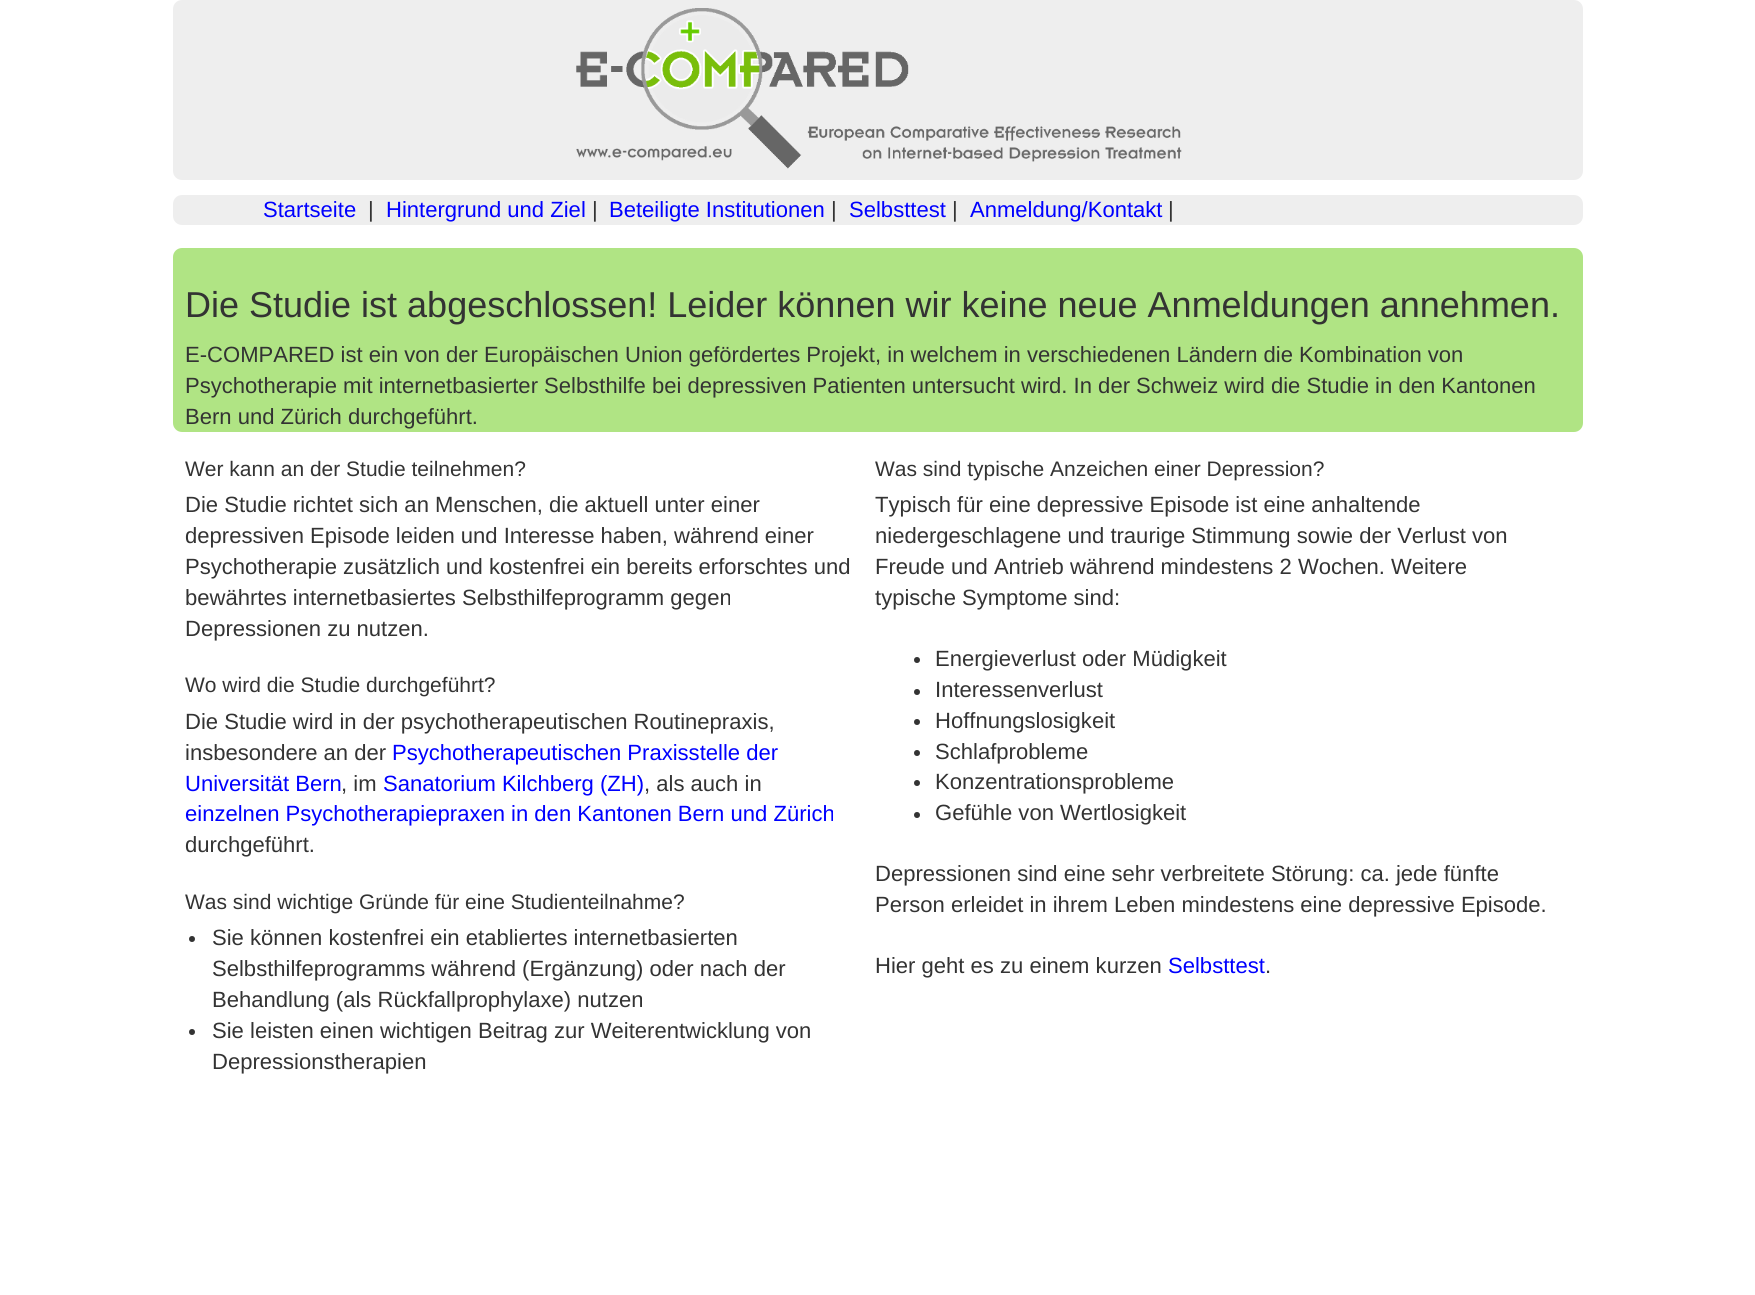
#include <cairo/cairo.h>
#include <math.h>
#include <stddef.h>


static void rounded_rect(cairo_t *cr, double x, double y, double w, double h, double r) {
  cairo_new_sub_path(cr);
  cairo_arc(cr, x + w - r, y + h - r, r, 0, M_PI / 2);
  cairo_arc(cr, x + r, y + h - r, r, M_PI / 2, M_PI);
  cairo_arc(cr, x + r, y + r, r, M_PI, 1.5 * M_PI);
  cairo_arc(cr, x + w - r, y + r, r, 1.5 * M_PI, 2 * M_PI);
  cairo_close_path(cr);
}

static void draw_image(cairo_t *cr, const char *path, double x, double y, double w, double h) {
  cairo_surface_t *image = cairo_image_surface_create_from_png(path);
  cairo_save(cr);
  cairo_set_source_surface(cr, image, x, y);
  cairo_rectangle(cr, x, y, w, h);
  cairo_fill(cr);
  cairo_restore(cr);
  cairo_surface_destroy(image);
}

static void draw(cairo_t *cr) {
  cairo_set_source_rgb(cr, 1, 1, 1);
  cairo_paint(cr);
  cairo_set_source_rgb(cr, 238 / 255.0, 238 / 255.0, 238 / 255.0);
  rounded_rect(cr, 173, 0, 1410, 180, 9);
  cairo_fill(cr);
  draw_image(cr, "images/1.png", 576, 8, 606, 161);
  rounded_rect(cr, 173, 195, 1410, 30, 9);
  cairo_fill(cr);
  cairo_set_source_rgb(cr, 176 / 255.0, 228 / 255.0, 132 / 255.0);
  rounded_rect(cr, 173, 248, 1410, 184, 9);
  cairo_fill(cr);
  cairo_set_source_rgb(cr, 51 / 255.0, 51 / 255.0, 51 / 255.0);
  cairo_arc(cr, 192, 939, 3, 0, 2 * M_PI);
  cairo_fill(cr);
  cairo_arc(cr, 192, 1032, 3, 0, 2 * M_PI);
  cairo_fill(cr);
  cairo_arc(cr, 917, 660, 3, 0, 2 * M_PI);
  cairo_fill(cr);
  cairo_arc(cr, 917, 692, 3, 0, 2 * M_PI);
  cairo_fill(cr);
  cairo_arc(cr, 917, 722, 3, 0, 2 * M_PI);
  cairo_fill(cr);
  cairo_arc(cr, 917, 753, 3, 0, 2 * M_PI);
  cairo_fill(cr);
  cairo_arc(cr, 917, 783, 3, 0, 2 * M_PI);
  cairo_fill(cr);
  cairo_arc(cr, 917, 815, 3, 0, 2 * M_PI);
  cairo_fill(cr);
  cairo_select_font_face(cr, "Liberation Sans", CAIRO_FONT_SLANT_NORMAL, CAIRO_FONT_WEIGHT_NORMAL);
  cairo_set_font_size(cr, 22.05);
  cairo_set_source_rgb(cr, 0, 0, 1);
  cairo_move_to(cr, 263, 217);
  cairo_show_text(cr, "Startseite");
  cairo_set_source_rgb(cr, 51 / 255.0, 51 / 255.0, 51 / 255.0);
  cairo_move_to(cr, 368, 217);
  cairo_show_text(cr, "|");
  cairo_set_source_rgb(cr, 0, 0, 1);
  cairo_move_to(cr, 386, 217);
  cairo_show_text(cr, "Hintergrund und Ziel");
  cairo_set_source_rgb(cr, 51 / 255.0, 51 / 255.0, 51 / 255.0);
  cairo_move_to(cr, 592, 217);
  cairo_show_text(cr, "|");
  cairo_set_source_rgb(cr, 0, 0, 1);
  cairo_move_to(cr, 609, 217);
  cairo_show_text(cr, "Beteiligte Institutionen");
  cairo_set_source_rgb(cr, 51 / 255.0, 51 / 255.0, 51 / 255.0);
  cairo_move_to(cr, 831, 217);
  cairo_show_text(cr, "|");
  cairo_set_source_rgb(cr, 0, 0, 1);
  cairo_move_to(cr, 849, 217);
  cairo_show_text(cr, "Selbsttest");
  cairo_set_source_rgb(cr, 51 / 255.0, 51 / 255.0, 51 / 255.0);
  cairo_move_to(cr, 952, 217);
  cairo_show_text(cr, "|");
  cairo_set_source_rgb(cr, 0, 0, 1);
  cairo_move_to(cr, 970, 217);
  cairo_show_text(cr, "Anmeldung/Kontakt");
  cairo_set_source_rgb(cr, 51 / 255.0, 51 / 255.0, 51 / 255.0);
  cairo_move_to(cr, 1168, 217);
  cairo_show_text(cr, "|");
  cairo_set_font_size(cr, 36);
  cairo_move_to(cr, 185, 317);
  cairo_show_text(cr, "Die Studie ist abgeschlossen! Leider können wir keine neue Anmeldungen annehmen.");
  cairo_set_font_size(cr, 22.05);
  cairo_move_to(cr, 185, 362);
  cairo_show_text(cr, "E-COMPARED ist ein von der Europäischen Union gefördertes Projekt, in welchem in verschiedenen Ländern die Kombination von");
  cairo_move_to(cr, 185, 393);
  cairo_show_text(cr, "Psychotherapie mit internetbasierter Selbsthilfe bei depressiven Patienten untersucht wird. In der Schweiz wird die Studie in den Kantonen");
  cairo_move_to(cr, 185, 424);
  cairo_show_text(cr, "Bern und Zürich durchgeführt.");
  cairo_set_font_size(cr, 21);
  cairo_move_to(cr, 185, 476);
  cairo_show_text(cr, "Wer kann an der Studie teilnehmen?");
  cairo_set_font_size(cr, 22.05);
  cairo_move_to(cr, 185, 512);
  cairo_show_text(cr, "Die Studie richtet sich an Menschen, die aktuell unter einer");
  cairo_move_to(cr, 185, 543);
  cairo_show_text(cr, "depressiven Episode leiden und Interesse haben, während einer");
  cairo_move_to(cr, 185, 574);
  cairo_show_text(cr, "Psychotherapie zusätzlich und kostenfrei ein bereits erforschtes und");
  cairo_move_to(cr, 185, 605);
  cairo_show_text(cr, "bewährtes internetbasiertes Selbsthilfeprogramm gegen");
  cairo_move_to(cr, 185, 636);
  cairo_show_text(cr, "Depressionen zu nutzen.");
  cairo_set_font_size(cr, 21);
  cairo_move_to(cr, 185, 692);
  cairo_show_text(cr, "Wo wird die Studie durchgeführt?");
  cairo_set_font_size(cr, 22.05);
  cairo_move_to(cr, 185, 729);
  cairo_show_text(cr, "Die Studie wird in der psychotherapeutischen Routinepraxis,");
  cairo_move_to(cr, 185, 760);
  cairo_show_text(cr, "insbesondere an der");
  cairo_set_source_rgb(cr, 0, 0, 1);
  cairo_move_to(cr, 392, 760);
  cairo_show_text(cr, "Psychotherapeutischen Praxisstelle der");
  cairo_move_to(cr, 185, 791);
  cairo_show_text(cr, "Universität Bern");
  cairo_set_source_rgb(cr, 51 / 255.0, 51 / 255.0, 51 / 255.0);
  cairo_move_to(cr, 341, 791);
  cairo_show_text(cr, ", im");
  cairo_set_source_rgb(cr, 0, 0, 1);
  cairo_move_to(cr, 383, 791);
  cairo_show_text(cr, "Sanatorium Kilchberg (ZH)");
  cairo_set_source_rgb(cr, 51 / 255.0, 51 / 255.0, 51 / 255.0);
  cairo_move_to(cr, 644, 791);
  cairo_show_text(cr, ", als auch in");
  cairo_set_source_rgb(cr, 0, 0, 1);
  cairo_move_to(cr, 185, 821);
  cairo_show_text(cr, "einzelnen Psychotherapiepraxen in den Kantonen Bern und Zürich");
  cairo_set_source_rgb(cr, 51 / 255.0, 51 / 255.0, 51 / 255.0);
  cairo_move_to(cr, 185, 852);
  cairo_show_text(cr, "durchgeführt.");
  cairo_set_font_size(cr, 21);
  cairo_move_to(cr, 185, 909);
  cairo_show_text(cr, "Was sind wichtige Gründe für eine Studienteilnahme?");
  cairo_set_font_size(cr, 22.05);
  cairo_move_to(cr, 212, 945);
  cairo_show_text(cr, "Sie können kostenfrei ein etabliertes internetbasierten");
  cairo_move_to(cr, 212, 976);
  cairo_show_text(cr, "Selbsthilfeprogramms während (Ergänzung) oder nach der");
  cairo_move_to(cr, 212, 1007);
  cairo_show_text(cr, "Behandlung (als Rückfallprophylaxe) nutzen");
  cairo_move_to(cr, 212, 1038);
  cairo_show_text(cr, "Sie leisten einen wichtigen Beitrag zur Weiterentwicklung von");
  cairo_move_to(cr, 212, 1069);
  cairo_show_text(cr, "Depressionstherapien");
  cairo_set_font_size(cr, 21);
  cairo_move_to(cr, 875, 476);
  cairo_show_text(cr, "Was sind typische Anzeichen einer Depression?");
  cairo_set_font_size(cr, 22.05);
  cairo_move_to(cr, 875, 512);
  cairo_show_text(cr, "Typisch für eine depressive Episode ist eine anhaltende");
  cairo_move_to(cr, 875, 543);
  cairo_show_text(cr, "niedergeschlagene und traurige Stimmung sowie der Verlust von");
  cairo_move_to(cr, 875, 574);
  cairo_show_text(cr, "Freude und Antrieb während mindestens 2 Wochen. Weitere");
  cairo_move_to(cr, 875, 605);
  cairo_show_text(cr, "typische Symptome sind:");
  cairo_move_to(cr, 935, 666);
  cairo_show_text(cr, "Energieverlust oder Müdigkeit");
  cairo_move_to(cr, 935, 697);
  cairo_show_text(cr, "Interessenverlust");
  cairo_move_to(cr, 935, 728);
  cairo_show_text(cr, "Hoffnungslosigkeit");
  cairo_move_to(cr, 935, 759);
  cairo_show_text(cr, "Schlafprobleme");
  cairo_move_to(cr, 935, 789);
  cairo_show_text(cr, "Konzentrationsprobleme");
  cairo_move_to(cr, 935, 820);
  cairo_show_text(cr, "Gefühle von Wertlosigkeit");
  cairo_move_to(cr, 875, 881);
  cairo_show_text(cr, "Depressionen sind eine sehr verbreitete Störung: ca. jede fünfte");
  cairo_move_to(cr, 875, 912);
  cairo_show_text(cr, "Person erleidet in ihrem Leben mindestens eine depressive Episode.");
  cairo_move_to(cr, 875, 973);
  cairo_show_text(cr, "Hier geht es zu einem kurzen");
  cairo_set_source_rgb(cr, 0, 0, 1);
  cairo_move_to(cr, 1168, 973);
  cairo_show_text(cr, "Selbsttest");
  cairo_set_source_rgb(cr, 51 / 255.0, 51 / 255.0, 51 / 255.0);
  cairo_move_to(cr, 1265, 973);
  cairo_show_text(cr, ".");
}

int main(void) {
  cairo_surface_t *surface = cairo_image_surface_create(CAIRO_FORMAT_RGB24, 1755, 1295);
  cairo_t *cr = cairo_create(surface);
  cairo_font_options_t *options = cairo_font_options_create();
  cairo_font_options_set_hint_metrics(options, CAIRO_HINT_METRICS_OFF);
  cairo_font_options_set_hint_style(options, CAIRO_HINT_STYLE_NONE);
  cairo_set_font_options(cr, options);
  cairo_set_miter_limit(cr, 4);
  draw(cr);
  cairo_surface_write_to_png(surface, "out.png");
  cairo_font_options_destroy(options);
  cairo_destroy(cr);
  cairo_surface_destroy(surface);
  return 0;
}
